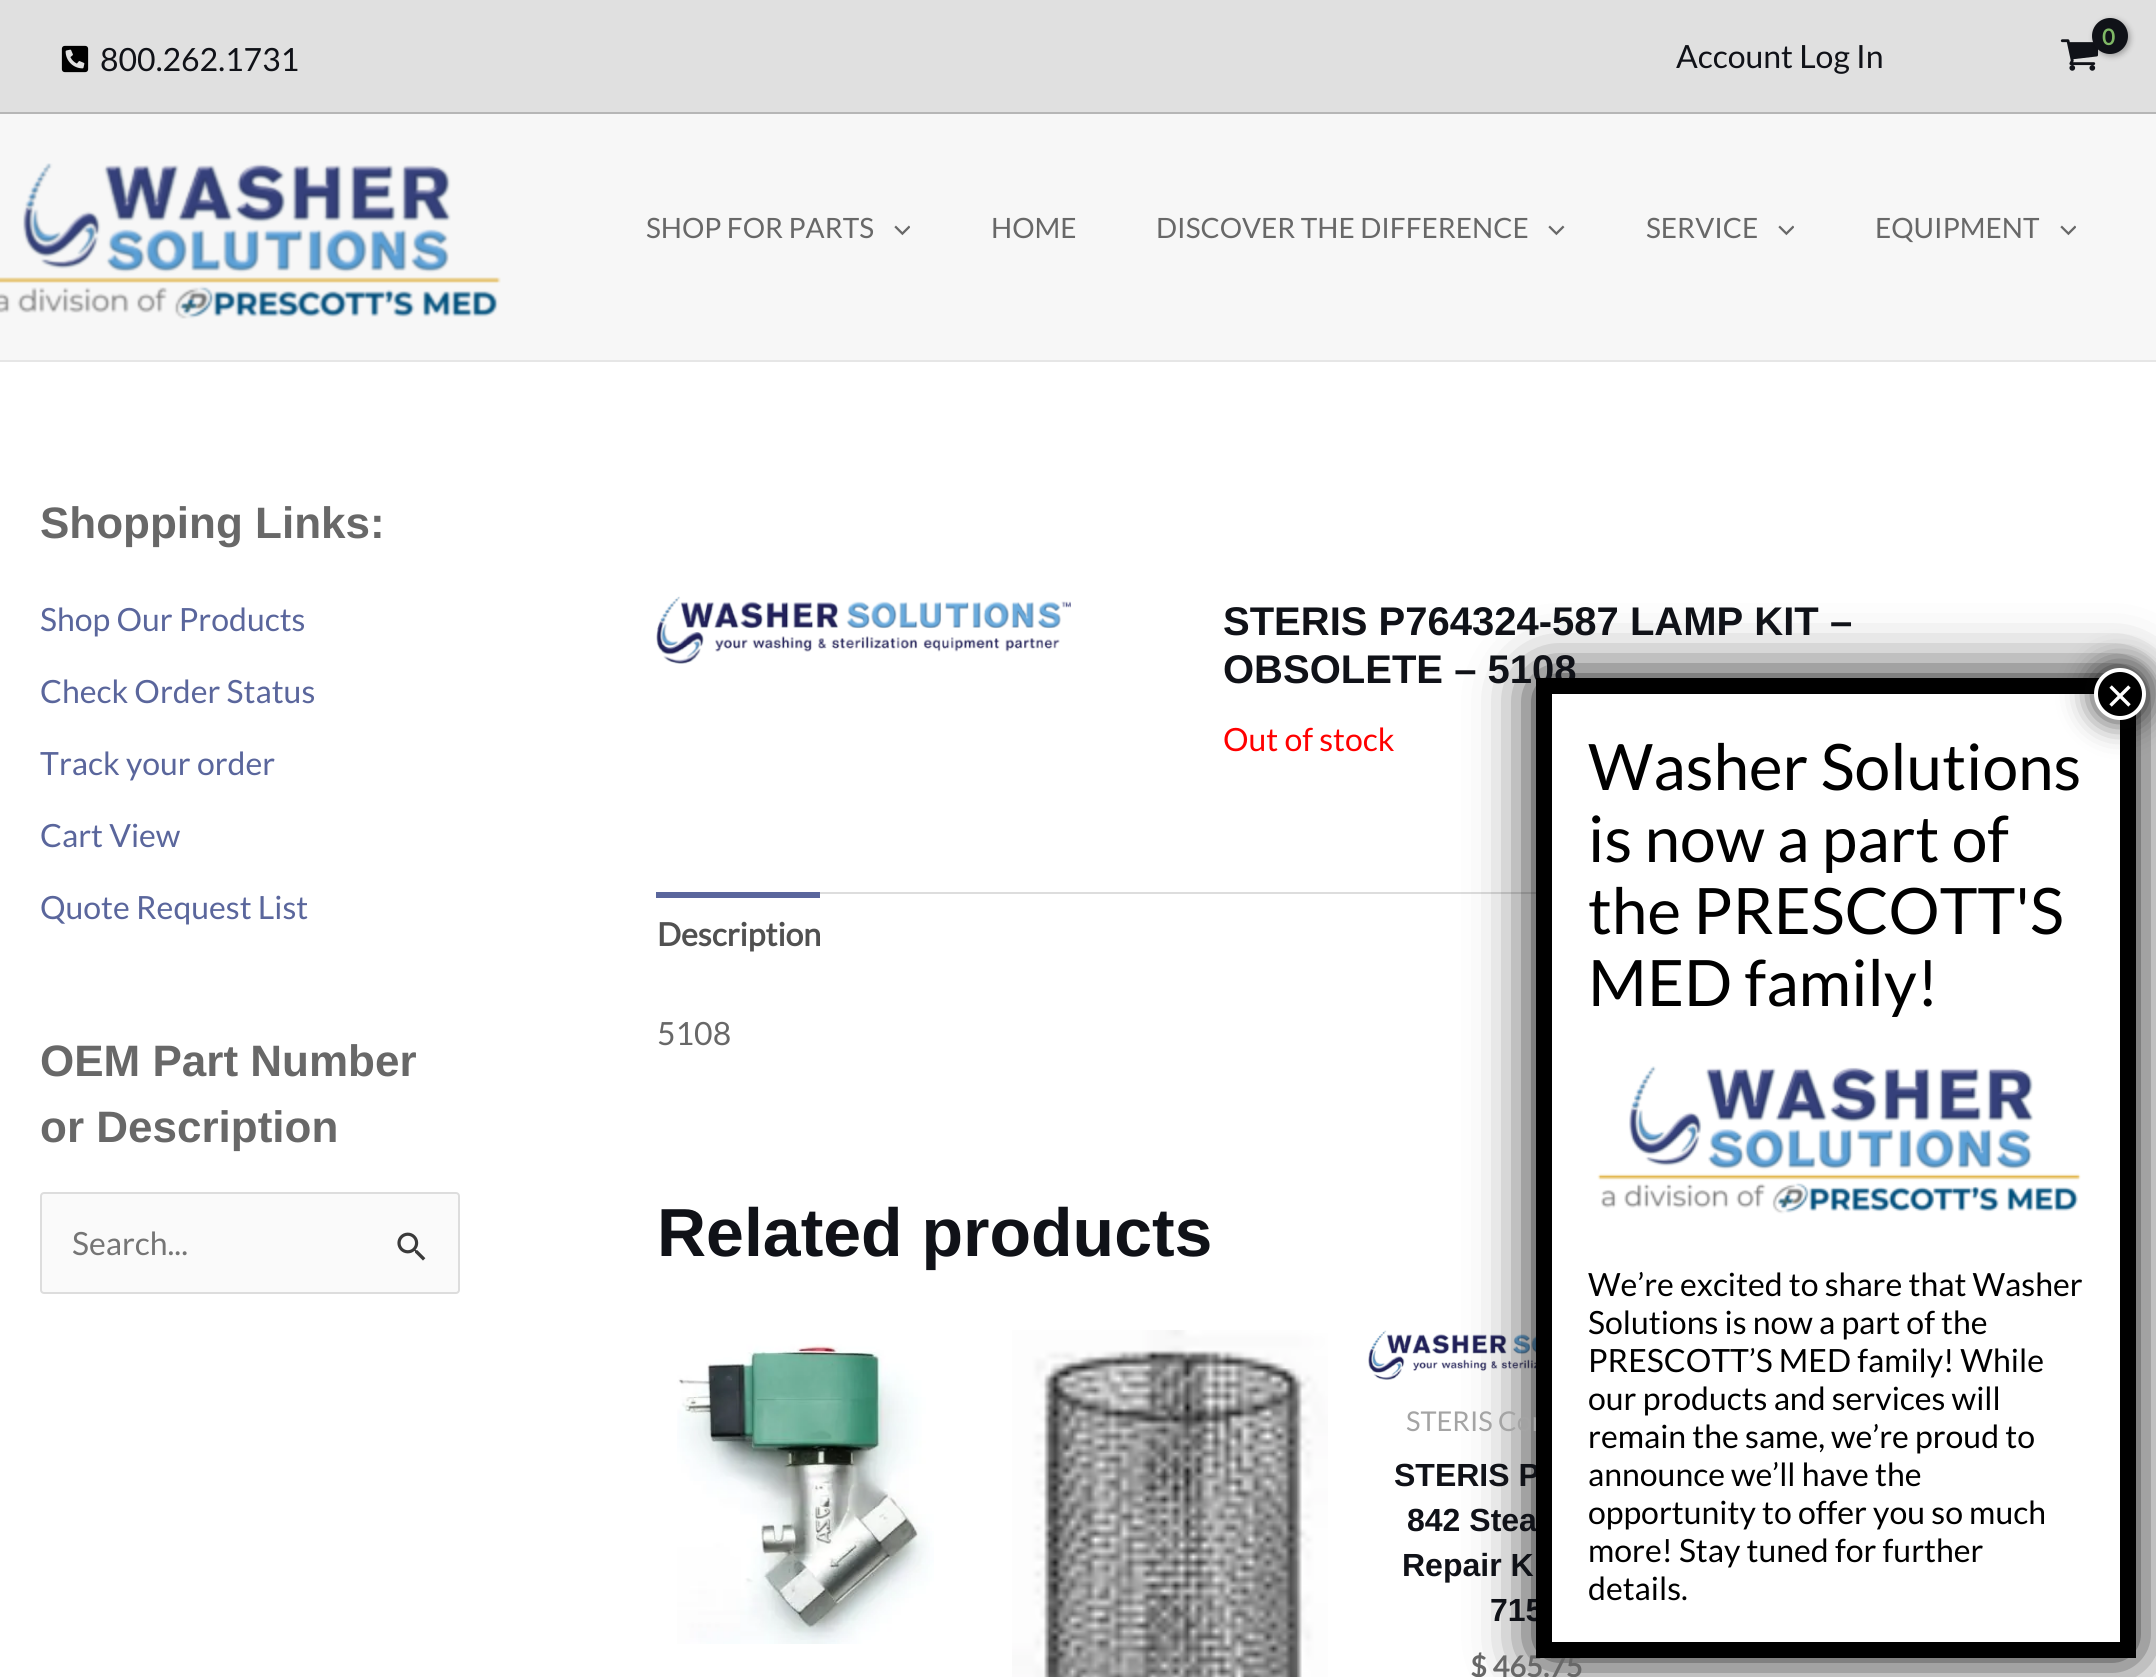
#include <cairo/cairo.h>
#include <math.h>
#include <stddef.h>


static void draw_spaced(cairo_t *cr, double x, double y, const char *s, double letter, double word) {
  cairo_move_to(cr, x, y);
  while (*s) {
    char ch[5] = {0};
    int n = 0;
    do ch[n++] = *s++; while ((*s & 0xC0) == 0x80);
    cairo_show_text(cr, ch);
    cairo_rel_move_to(cr, letter + word * (*ch == ' '), 0);
  }
}

static void rounded_rect(cairo_t *cr, double x, double y, double w, double h, double r) {
  cairo_new_sub_path(cr);
  cairo_arc(cr, x + w - r, y + h - r, r, 0, M_PI / 2);
  cairo_arc(cr, x + r, y + h - r, r, M_PI / 2, M_PI);
  cairo_arc(cr, x + r, y + r, r, M_PI, 1.5 * M_PI);
  cairo_arc(cr, x + w - r, y + r, r, 1.5 * M_PI, 2 * M_PI);
  cairo_close_path(cr);
}

static void draw_shadow(cairo_t *cr, double x, double y, double w, double h, double r, double blur, double alpha) {
  cairo_push_group_with_content(cr, CAIRO_CONTENT_ALPHA);
  cairo_set_operator(cr, CAIRO_OPERATOR_SOURCE);
  for (int i = 15; i >= -15 && fmin(w, h) + blur * i / 3 > 0; i -= 2) {
    double e = blur * i / 6;
    cairo_set_source_rgba(cr, 0, 0, 0, alpha * erfc((i - 1) / 8.5) / 2);
    rounded_rect(cr, x - e, y - e, w + 2 * e, h + 2 * e, fmax(0, fmin(r + e + blur * .6, fmin(w, h) / 2 + e)));
    cairo_fill(cr);
  }
  cairo_pattern_t *soft = cairo_pop_group(cr);
  cairo_mask(cr, soft);
  cairo_pattern_destroy(soft);
}

static void draw_image(cairo_t *cr, const char *path, double x, double y, double w, double h) {
  cairo_surface_t *image = cairo_image_surface_create_from_png(path);
  cairo_save(cr);
  cairo_set_source_surface(cr, image, x, y);
  cairo_rectangle(cr, x, y, w, h);
  cairo_fill(cr);
  cairo_restore(cr);
  cairo_surface_destroy(image);
}

static void draw(cairo_t *cr) {
  cairo_set_source_rgb(cr, 1, 1, 1);
  cairo_paint(cr);
  cairo_set_source_rgb(cr, 224 / 255.0, 224 / 255.0, 224 / 255.0);
  cairo_rectangle(cr, 0, 0, 2156, 112);
  cairo_fill(cr);
  cairo_set_source_rgb(cr, 182 / 255.0, 182 / 255.0, 182 / 255.0);
  cairo_rectangle(cr, 0, 112, 2156, 2);
  cairo_fill(cr);
  draw_image(cr, "images/1.png", 61, 45, 28, 28);
  draw_image(cr, "images/2.png", 2060, 39, 39, 32);
  cairo_set_source_rgb(cr, 0, 0, 0);
  draw_shadow(cr, 2094, 20, 36, 36, 18, 3, 0.3);
  cairo_set_source_rgb(cr, 16 / 255.0, 18 / 255.0, 24 / 255.0);
  cairo_arc(cr, 2110, 36, 18, 0, 2 * M_PI);
  cairo_fill(cr);
  cairo_set_source_rgb(cr, 247 / 255.0, 247 / 255.0, 247 / 255.0);
  cairo_rectangle(cr, 0, 114, 2156, 246);
  cairo_fill(cr);
  cairo_set_source_rgb(cr, 230 / 255.0, 230 / 255.0, 230 / 255.0);
  cairo_rectangle(cr, 0, 360, 2156, 2);
  cairo_fill(cr);
  draw_image(cr, "images/3.png", 0, 163, 501, 156);
  draw_image(cr, "images/4.png", 894, 225, 16, 11);
  draw_image(cr, "images/5.png", 1548, 225, 17, 11);
  draw_image(cr, "images/4.png", 1778, 225, 16, 11);
  draw_image(cr, "images/4.png", 2060, 225, 16, 11);
  cairo_set_source_rgb(cr, 250 / 255.0, 250 / 255.0, 250 / 255.0);
  rounded_rect(cr, 41, 1193, 418, 100, 3);
  cairo_fill_preserve(cr);
  cairo_set_source_rgb(cr, 221 / 255.0, 221 / 255.0, 221 / 255.0);
  cairo_stroke(cr);
  draw_image(cr, "images/6.png", 397, 1232, 29, 29);
  draw_image(cr, "images/7.png", 656, 596, 415, 68);
  cairo_rectangle(cr, 820, 892, 716, 2);
  cairo_fill(cr);
  cairo_set_source_rgb(cr, 90 / 255.0, 102 / 255.0, 156 / 255.0);
  cairo_rectangle(cr, 656, 892, 164, 6);
  cairo_fill(cr);
  draw_image(cr, "images/8.png", 677, 1344, 257, 300);
  draw_image(cr, "images/9.png", 1012, 1330, 316, 347);
  draw_image(cr, "images/10.png", 1368, 1330, 168, 50);
  cairo_set_source_rgb(cr, 2 / 255.0, 2 / 255.0, 2 / 255.0);
  draw_shadow(cr, 1536, 678, 600, 980, 6, 30, 1);
  cairo_set_source_rgb(cr, 1, 1, 1);
  cairo_rectangle(cr, 1552, 694, 568, 948);
  cairo_fill(cr);
  cairo_select_font_face(cr, "Lato", CAIRO_FONT_SLANT_NORMAL, CAIRO_FONT_WEIGHT_NORMAL);
  cairo_set_font_size(cr, 32);
  cairo_set_source_rgb(cr, 16 / 255.0, 18 / 255.0, 24 / 255.0);
  cairo_move_to(cr, 100, 71);
  cairo_show_text(cr, "800.262.1731");
  cairo_select_font_face(cr, "Lato", CAIRO_FONT_SLANT_NORMAL, CAIRO_FONT_WEIGHT_BOLD);
  cairo_set_font_size(cr, 22);
  cairo_set_source_rgb(cr, 127 / 255.0, 184 / 255.0, 101 / 255.0);
  draw_spaced(cr, 2102, 45, "0", -1, 0);
  cairo_select_font_face(cr, "Lato", CAIRO_FONT_SLANT_NORMAL, CAIRO_FONT_WEIGHT_NORMAL);
  cairo_set_font_size(cr, 32);
  cairo_set_source_rgb(cr, 16 / 255.0, 18 / 255.0, 24 / 255.0);
  cairo_move_to(cr, 1676, 68);
  cairo_show_text(cr, "Account Log In");
  cairo_set_font_size(cr, 28);
  cairo_set_source_rgb(cr, 104 / 255.0, 104 / 255.0, 104 / 255.0);
  cairo_move_to(cr, 646, 238);
  cairo_show_text(cr, "SHOP FOR PARTS");
  cairo_move_to(cr, 991, 238);
  cairo_show_text(cr, "HOME");
  cairo_move_to(cr, 1156, 238);
  cairo_show_text(cr, "DISCOVER THE DIFFERENCE");
  cairo_move_to(cr, 1646, 238);
  cairo_show_text(cr, "SERVICE");
  cairo_move_to(cr, 1875, 238);
  cairo_show_text(cr, "EQUIPMENT");
  cairo_select_font_face(cr, "Liberation Sans", CAIRO_FONT_SLANT_NORMAL, CAIRO_FONT_WEIGHT_BOLD);
  cairo_set_font_size(cr, 44);
  cairo_move_to(cr, 40, 538);
  cairo_show_text(cr, "Shopping Links:");
  cairo_select_font_face(cr, "Lato", CAIRO_FONT_SLANT_NORMAL, CAIRO_FONT_WEIGHT_NORMAL);
  cairo_set_font_size(cr, 32);
  cairo_set_source_rgb(cr, 90 / 255.0, 102 / 255.0, 156 / 255.0);
  cairo_move_to(cr, 40, 631);
  cairo_show_text(cr, "Shop Our Products");
  cairo_move_to(cr, 40, 703);
  cairo_show_text(cr, "Check Order Status");
  cairo_move_to(cr, 40, 775);
  cairo_show_text(cr, "Track your order");
  cairo_move_to(cr, 40, 847);
  cairo_show_text(cr, "Cart View");
  cairo_move_to(cr, 40, 919);
  cairo_show_text(cr, "Quote Request List");
  cairo_select_font_face(cr, "Liberation Sans", CAIRO_FONT_SLANT_NORMAL, CAIRO_FONT_WEIGHT_BOLD);
  cairo_set_font_size(cr, 44);
  cairo_set_source_rgb(cr, 104 / 255.0, 104 / 255.0, 104 / 255.0);
  cairo_move_to(cr, 40, 1076);
  cairo_show_text(cr, "OEM Part Number");
  cairo_move_to(cr, 40, 1142);
  cairo_show_text(cr, "or Description");
  cairo_select_font_face(cr, "Lato", CAIRO_FONT_SLANT_NORMAL, CAIRO_FONT_WEIGHT_NORMAL);
  cairo_set_font_size(cr, 32);
  cairo_set_source_rgb(cr, 117 / 255.0, 117 / 255.0, 117 / 255.0);
  cairo_move_to(cr, 72, 1255);
  cairo_show_text(cr, "Search...");
  cairo_select_font_face(cr, "Liberation Sans", CAIRO_FONT_SLANT_NORMAL, CAIRO_FONT_WEIGHT_BOLD);
  cairo_set_font_size(cr, 40);
  cairo_set_source_rgb(cr, 16 / 255.0, 18 / 255.0, 24 / 255.0);
  cairo_move_to(cr, 1223, 635);
  cairo_show_text(cr, "STERIS P764324-587 LAMP KIT –");
  cairo_move_to(cr, 1223, 683);
  cairo_show_text(cr, "OBSOLETE – 5108");
  cairo_select_font_face(cr, "Lato", CAIRO_FONT_SLANT_NORMAL, CAIRO_FONT_WEIGHT_NORMAL);
  cairo_set_font_size(cr, 32);
  cairo_set_source_rgb(cr, 1, 0, 0);
  cairo_move_to(cr, 1223, 751);
  cairo_show_text(cr, "Out of stock");
  cairo_select_font_face(cr, "Lato", CAIRO_FONT_SLANT_NORMAL, CAIRO_FONT_WEIGHT_BOLD);
  cairo_set_source_rgb(cr, 81 / 255.0, 81 / 255.0, 81 / 255.0);
  cairo_move_to(cr, 657, 946);
  cairo_show_text(cr, "Description");
  cairo_select_font_face(cr, "Lato", CAIRO_FONT_SLANT_NORMAL, CAIRO_FONT_WEIGHT_NORMAL);
  cairo_set_source_rgb(cr, 104 / 255.0, 104 / 255.0, 104 / 255.0);
  cairo_move_to(cr, 657, 1045);
  cairo_show_text(cr, "5108");
  cairo_select_font_face(cr, "Liberation Sans", CAIRO_FONT_SLANT_NORMAL, CAIRO_FONT_WEIGHT_BOLD);
  cairo_set_font_size(cr, 68);
  cairo_set_source_rgb(cr, 16 / 255.0, 18 / 255.0, 24 / 255.0);
  cairo_move_to(cr, 657, 1256);
  cairo_show_text(cr, "Related products");
  cairo_select_font_face(cr, "Lato", CAIRO_FONT_SLANT_NORMAL, CAIRO_FONT_WEIGHT_NORMAL);
  cairo_set_font_size(cr, 27.25);
  cairo_set_source_rgb(cr, 164 / 255.0, 164 / 255.0, 164 / 255.0);
  cairo_move_to(cr, 1406, 1431);
  cairo_show_text(cr, "STERIS Cor");
  cairo_select_font_face(cr, "Liberation Sans", CAIRO_FONT_SLANT_NORMAL, CAIRO_FONT_WEIGHT_BOLD);
  cairo_set_font_size(cr, 32);
  cairo_set_source_rgb(cr, 16 / 255.0, 18 / 255.0, 24 / 255.0);
  cairo_move_to(cr, 1394, 1486);
  cairo_show_text(cr, "STERIS P");
  cairo_move_to(cr, 1407, 1531);
  cairo_show_text(cr, "842 Stea");
  cairo_move_to(cr, 1402, 1576);
  cairo_show_text(cr, "Repair K");
  cairo_move_to(cr, 1490, 1621);
  cairo_show_text(cr, "715");
  cairo_select_font_face(cr, "Lato", CAIRO_FONT_SLANT_NORMAL, CAIRO_FONT_WEIGHT_BOLD);
  cairo_set_font_size(cr, 29);
  cairo_set_source_rgb(cr, 104 / 255.0, 104 / 255.0, 104 / 255.0);
  cairo_move_to(cr, 1470, 1677);
  cairo_show_text(cr, "$ 465.75");
  cairo_new_path(cr);
  cairo_move_to(cr, 1544, 686);
  cairo_line_to(cr, 2128, 686);
  cairo_line_to(cr, 2128, 1650);
  cairo_line_to(cr, 1544, 1650);
  cairo_close_path(cr);
  cairo_set_source_rgb(cr, 0, 0, 0);
  cairo_set_line_width(cr, 16);
  cairo_stroke(cr);
  cairo_set_source_rgb(cr, 2 / 255.0, 2 / 255.0, 2 / 255.0);
  draw_shadow(cr, 2092, 666, 56, 56, 28, 15, 0.75);
  cairo_set_source_rgb(cr, 0, 0, 0);
  cairo_arc(cr, 2120, 694, 24, 0, 2 * M_PI);
  cairo_fill_preserve(cr);
  cairo_set_source_rgb(cr, 1, 1, 1);
  cairo_set_line_width(cr, 4);
  cairo_stroke(cr);
  cairo_select_font_face(cr, "Liberation Sans", CAIRO_FONT_SLANT_NORMAL, CAIRO_FONT_WEIGHT_NORMAL);
  cairo_set_font_size(cr, 48);
  cairo_move_to(cr, 2106, 712);
  cairo_show_text(cr, "×");
  cairo_select_font_face(cr, "Lato", CAIRO_FONT_SLANT_NORMAL, CAIRO_FONT_WEIGHT_NORMAL);
  cairo_set_font_size(cr, 64);
  cairo_set_source_rgb(cr, 0, 0, 0);
  cairo_move_to(cr, 1588, 790);
  cairo_show_text(cr, "Washer Solutions");
  cairo_move_to(cr, 1588, 862);
  cairo_show_text(cr, "is now a part of");
  cairo_move_to(cr, 1588, 934);
  cairo_show_text(cr, "the PRESCOTT'S");
  cairo_move_to(cr, 1588, 1006);
  cairo_show_text(cr, "MED family!");
  draw_image(cr, "images/11.png", 1597, 1066, 484, 148);
  cairo_set_font_size(cr, 32);
  cairo_move_to(cr, 1588, 1296);
  cairo_show_text(cr, "We’re excited to share that Washer");
  cairo_move_to(cr, 1588, 1334);
  cairo_show_text(cr, "Solutions is now a part of the");
  cairo_move_to(cr, 1588, 1372);
  cairo_show_text(cr, "PRESCOTT’S MED family! While");
  cairo_move_to(cr, 1588, 1410);
  cairo_show_text(cr, "our products and services will");
  cairo_move_to(cr, 1588, 1448);
  cairo_show_text(cr, "remain the same, we’re proud to");
  cairo_move_to(cr, 1588, 1486);
  cairo_show_text(cr, "announce we’ll have the");
  cairo_move_to(cr, 1588, 1524);
  cairo_show_text(cr, "opportunity to offer you so much");
  cairo_move_to(cr, 1588, 1562);
  cairo_show_text(cr, "more! Stay tuned for further");
  cairo_move_to(cr, 1588, 1600);
  cairo_show_text(cr, "details.");
}

int main(void) {
  cairo_surface_t *surface = cairo_image_surface_create(CAIRO_FORMAT_RGB24, 2156, 1677);
  cairo_t *cr = cairo_create(surface);
  cairo_font_options_t *options = cairo_font_options_create();
  cairo_font_options_set_hint_metrics(options, CAIRO_HINT_METRICS_OFF);
  cairo_font_options_set_hint_style(options, CAIRO_HINT_STYLE_NONE);
  cairo_set_font_options(cr, options);
  cairo_set_miter_limit(cr, 4);
  draw(cr);
  cairo_surface_write_to_png(surface, "out.png");
  cairo_font_options_destroy(options);
  cairo_destroy(cr);
  cairo_surface_destroy(surface);
  return 0;
}
